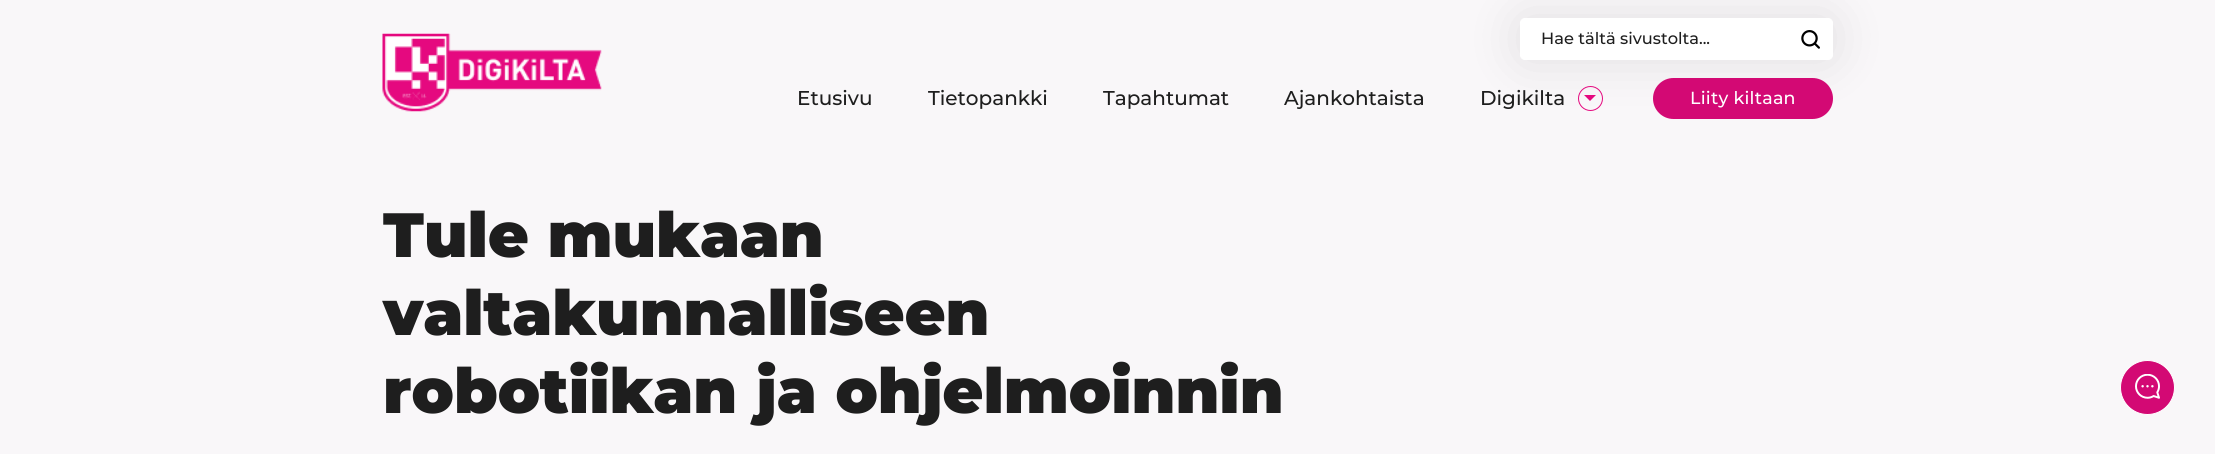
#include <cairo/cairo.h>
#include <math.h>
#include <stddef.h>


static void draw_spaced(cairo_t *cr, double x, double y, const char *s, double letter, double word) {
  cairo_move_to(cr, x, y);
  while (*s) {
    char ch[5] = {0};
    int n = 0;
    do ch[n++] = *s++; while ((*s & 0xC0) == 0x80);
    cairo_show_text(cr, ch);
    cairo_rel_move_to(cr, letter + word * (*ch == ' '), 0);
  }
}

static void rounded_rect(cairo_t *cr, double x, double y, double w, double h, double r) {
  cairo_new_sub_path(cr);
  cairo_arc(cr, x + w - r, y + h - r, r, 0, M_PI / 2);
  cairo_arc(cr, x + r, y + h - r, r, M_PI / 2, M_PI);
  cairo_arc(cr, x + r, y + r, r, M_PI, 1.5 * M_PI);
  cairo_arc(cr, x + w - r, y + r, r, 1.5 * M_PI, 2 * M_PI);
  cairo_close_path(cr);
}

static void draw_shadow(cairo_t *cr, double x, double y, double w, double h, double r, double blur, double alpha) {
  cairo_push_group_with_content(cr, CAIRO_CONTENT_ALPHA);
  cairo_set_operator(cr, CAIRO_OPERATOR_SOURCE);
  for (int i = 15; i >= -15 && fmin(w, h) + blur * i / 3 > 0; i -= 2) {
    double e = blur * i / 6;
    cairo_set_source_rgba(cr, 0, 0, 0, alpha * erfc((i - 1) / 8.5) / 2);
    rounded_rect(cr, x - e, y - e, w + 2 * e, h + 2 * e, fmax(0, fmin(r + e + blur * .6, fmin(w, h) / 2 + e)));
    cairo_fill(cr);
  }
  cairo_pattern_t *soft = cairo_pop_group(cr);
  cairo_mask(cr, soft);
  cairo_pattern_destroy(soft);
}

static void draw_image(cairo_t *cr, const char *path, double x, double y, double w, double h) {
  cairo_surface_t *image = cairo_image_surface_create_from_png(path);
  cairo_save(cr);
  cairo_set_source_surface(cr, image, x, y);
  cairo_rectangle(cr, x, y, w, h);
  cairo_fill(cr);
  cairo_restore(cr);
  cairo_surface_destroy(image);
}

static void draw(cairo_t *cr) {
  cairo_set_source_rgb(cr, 249 / 255.0, 247 / 255.0, 249 / 255.0);
  cairo_paint(cr);
  draw_image(cr, "images/1.png", 382, 33, 220, 79);
  cairo_set_source_rgb(cr, 0, 0, 0);
  draw_shadow(cr, 1520, 18, 313, 42, 5, 25, 0.1);
  cairo_set_source_rgb(cr, 1, 1, 1);
  rounded_rect(cr, 1520.5, 18.5, 312, 41, 4.5);
  cairo_fill_preserve(cr);
  cairo_set_line_width(cr, 1);
  cairo_stroke(cr);
  draw_image(cr, "images/2.png", 1801, 30, 19, 19);
  cairo_arc(cr, 1590.5, 98.5, 12, 0, 2 * M_PI);
  cairo_set_source_rgb(cr, 229 / 255.0, 9 / 255.0, 127 / 255.0);
  cairo_stroke(cr);
  cairo_new_path(cr);
  cairo_move_to(cr, 1584, 95);
  cairo_line_to(cr, 1596, 95);
  cairo_line_to(cr, 1590, 101);
  cairo_close_path(cr);
  cairo_fill(cr);
  cairo_set_source_rgb(cr, 211 / 255.0, 9 / 255.0, 116 / 255.0);
  rounded_rect(cr, 1653, 78, 180, 41, 20.5);
  cairo_fill(cr);
  cairo_arc(cr, 2147.5, 387.5, 27, 0, 2 * M_PI);
  cairo_fill_preserve(cr);
  cairo_set_source_rgb(cr, 1, 1, 1);
  cairo_stroke(cr);
  draw_image(cr, "images/3.png", 2135, 374, 25, 25);
  cairo_select_font_face(cr, "Montserrat Medium", CAIRO_FONT_SLANT_NORMAL, CAIRO_FONT_WEIGHT_NORMAL);
  cairo_set_font_size(cr, 16.25);
  cairo_set_source_rgb(cr, 30 / 255.0, 30 / 255.0, 30 / 255.0);
  cairo_move_to(cr, 1541, 44);
  cairo_show_text(cr, "Hae tältä sivustolta...");
  cairo_set_font_size(cr, 20);
  cairo_move_to(cr, 797, 105);
  cairo_show_text(cr, "Etusivu");
  cairo_move_to(cr, 928, 105);
  cairo_show_text(cr, "Tietopankki");
  cairo_move_to(cr, 1103, 105);
  cairo_show_text(cr, "Tapahtumat");
  cairo_move_to(cr, 1284, 105);
  cairo_show_text(cr, "Ajankohtaista");
  cairo_move_to(cr, 1480, 105);
  cairo_show_text(cr, "Digikilta");
  cairo_set_font_size(cr, 17.5);
  cairo_set_source_rgb(cr, 1, 1, 1);
  draw_spaced(cr, 1690, 104, "Liity kiltaan", 0.25, 0);
  cairo_select_font_face(cr, "Montserrat Black", CAIRO_FONT_SLANT_NORMAL, CAIRO_FONT_WEIGHT_NORMAL);
  cairo_set_font_size(cr, 62.5);
  cairo_set_source_rgb(cr, 30 / 255.0, 30 / 255.0, 30 / 255.0);
  cairo_move_to(cr, 383, 257);
  cairo_show_text(cr, "Tule mukaan");
  cairo_move_to(cr, 383, 335);
  cairo_show_text(cr, "valtakunnalliseen");
  cairo_move_to(cr, 383, 413);
  cairo_show_text(cr, "robotiikan ja ohjelmoinnin");
}

int main(void) {
  cairo_surface_t *surface = cairo_image_surface_create(CAIRO_FORMAT_RGB24, 2215, 454);
  cairo_t *cr = cairo_create(surface);
  cairo_font_options_t *options = cairo_font_options_create();
  cairo_font_options_set_hint_metrics(options, CAIRO_HINT_METRICS_OFF);
  cairo_font_options_set_hint_style(options, CAIRO_HINT_STYLE_NONE);
  cairo_set_font_options(cr, options);
  cairo_set_miter_limit(cr, 4);
  draw(cr);
  cairo_surface_write_to_png(surface, "out.png");
  cairo_font_options_destroy(options);
  cairo_destroy(cr);
  cairo_surface_destroy(surface);
  return 0;
}
